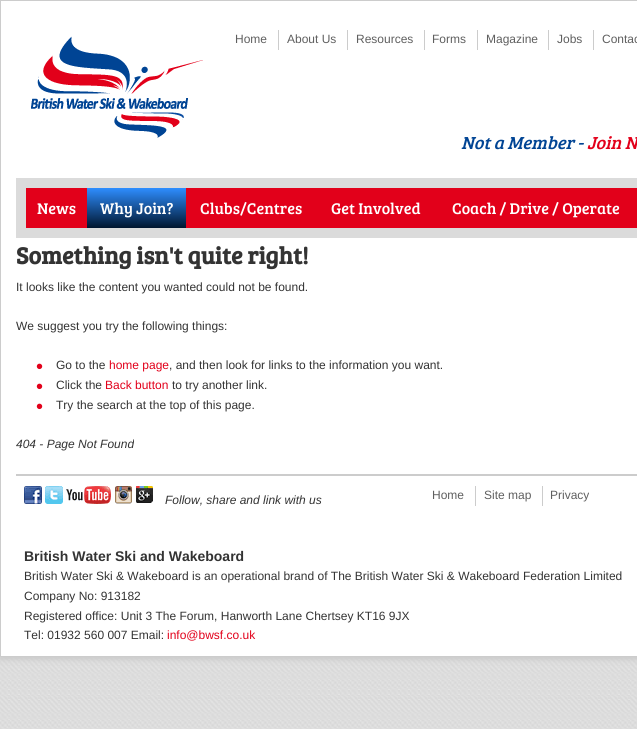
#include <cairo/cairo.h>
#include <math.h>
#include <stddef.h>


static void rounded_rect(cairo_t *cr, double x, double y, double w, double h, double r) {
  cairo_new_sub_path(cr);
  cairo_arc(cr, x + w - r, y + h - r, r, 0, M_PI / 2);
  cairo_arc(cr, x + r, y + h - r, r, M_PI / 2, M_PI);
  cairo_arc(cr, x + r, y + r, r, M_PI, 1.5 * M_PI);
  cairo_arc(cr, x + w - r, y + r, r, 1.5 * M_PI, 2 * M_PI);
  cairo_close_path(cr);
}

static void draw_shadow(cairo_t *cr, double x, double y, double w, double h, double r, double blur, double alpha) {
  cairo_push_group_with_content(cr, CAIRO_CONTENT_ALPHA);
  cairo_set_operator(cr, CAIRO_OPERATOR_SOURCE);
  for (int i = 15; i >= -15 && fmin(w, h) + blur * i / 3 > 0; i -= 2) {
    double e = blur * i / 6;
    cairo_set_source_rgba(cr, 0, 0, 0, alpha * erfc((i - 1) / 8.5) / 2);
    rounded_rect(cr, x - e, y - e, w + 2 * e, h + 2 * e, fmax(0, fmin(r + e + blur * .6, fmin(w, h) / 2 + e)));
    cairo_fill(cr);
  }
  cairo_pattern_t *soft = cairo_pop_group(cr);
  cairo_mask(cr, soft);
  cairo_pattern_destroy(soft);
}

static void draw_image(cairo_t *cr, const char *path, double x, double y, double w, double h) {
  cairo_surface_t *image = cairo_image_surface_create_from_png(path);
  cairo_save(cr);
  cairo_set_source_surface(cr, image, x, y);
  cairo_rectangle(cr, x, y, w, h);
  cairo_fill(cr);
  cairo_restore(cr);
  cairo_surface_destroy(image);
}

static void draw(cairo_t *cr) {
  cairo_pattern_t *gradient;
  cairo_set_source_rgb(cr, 1, 1, 1);
  cairo_paint(cr);
  draw_image(cr, "images/1.png", 0, 657, 637, 72);
  cairo_set_source_rgb(cr, 204 / 255.0, 204 / 255.0, 204 / 255.0);
  draw_shadow(cr, 0, 3, 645, 657, 0, 2.5, 1);
  cairo_set_source_rgb(cr, 1, 1, 1);
  cairo_rectangle(cr, 0.5, 0.5, 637, 656);
  cairo_fill_preserve(cr);
  cairo_set_source_rgb(cr, 204 / 255.0, 204 / 255.0, 204 / 255.0);
  cairo_set_line_width(cr, 1);
  cairo_stroke(cr);
  draw_image(cr, "images/2.png", 31, 36, 172, 102);
  cairo_rectangle(cr, 278, 30, 1, 20);
  cairo_fill(cr);
  cairo_rectangle(cr, 347, 30, 1, 20);
  cairo_fill(cr);
  cairo_rectangle(cr, 424, 30, 1, 20);
  cairo_fill(cr);
  cairo_rectangle(cr, 477, 30, 1, 20);
  cairo_fill(cr);
  cairo_rectangle(cr, 548, 30, 1, 20);
  cairo_fill(cr);
  cairo_rectangle(cr, 593, 30, 1, 20);
  cairo_fill(cr);
  cairo_set_source_rgb(cr, 219 / 255.0, 219 / 255.0, 219 / 255.0);
  cairo_rectangle(cr, 16, 178, 621, 60);
  cairo_fill(cr);
  cairo_set_source_rgb(cr, 226 / 255.0, 0, 26 / 255.0);
  cairo_rectangle(cr, 26, 188, 61, 40);
  cairo_fill(cr);
  gradient = cairo_pattern_create_linear(137, 188, 137, 228);
  cairo_pattern_add_color_stop_rgba(gradient, 0, 46 / 255.0, 142 / 255.0, 1, 1);
  cairo_pattern_add_color_stop_rgba(gradient, 1, 0, 21 / 255.0, 46 / 255.0, 1);
  cairo_set_source(cr, gradient);
  cairo_pattern_destroy(gradient);
  cairo_rectangle(cr, 87, 188, 99, 40);
  cairo_fill(cr);
  cairo_set_source_rgb(cr, 226 / 255.0, 0, 26 / 255.0);
  cairo_rectangle(cr, 186, 188, 451, 40);
  cairo_fill(cr);
  cairo_set_source_rgb(cr, 204 / 255.0, 204 / 255.0, 204 / 255.0);
  cairo_rectangle(cr, 16, 474, 621, 2);
  cairo_fill(cr);
  draw_image(cr, "images/3.png", 24, 486, 18, 18);
  draw_image(cr, "images/4.png", 45, 486, 18, 18);
  draw_image(cr, "images/5.png", 66, 486, 45, 18);
  draw_image(cr, "images/6.png", 115, 486, 17, 18);
  draw_image(cr, "images/7.png", 136, 486, 17, 17);
  cairo_rectangle(cr, 475, 486, 1, 20);
  cairo_fill(cr);
  cairo_rectangle(cr, 542, 486, 1, 20);
  cairo_fill(cr);
  cairo_select_font_face(cr, "Liberation Sans", CAIRO_FONT_SLANT_NORMAL, CAIRO_FONT_WEIGHT_NORMAL);
  cairo_set_font_size(cr, 12);
  cairo_set_source_rgb(cr, 95 / 255.0, 95 / 255.0, 95 / 255.0);
  cairo_move_to(cr, 235, 43);
  cairo_show_text(cr, "Home");
  cairo_move_to(cr, 287, 43);
  cairo_show_text(cr, "About Us");
  cairo_move_to(cr, 356, 43);
  cairo_show_text(cr, "Resources");
  cairo_move_to(cr, 432, 43);
  cairo_show_text(cr, "Forms");
  cairo_move_to(cr, 486, 43);
  cairo_show_text(cr, "Magazine");
  cairo_move_to(cr, 557, 43);
  cairo_show_text(cr, "Jobs");
  cairo_move_to(cr, 602, 43);
  cairo_show_text(cr, "Contac");
  cairo_select_font_face(cr, "Bree Serif", CAIRO_FONT_SLANT_ITALIC, CAIRO_FONT_WEIGHT_NORMAL);
  cairo_set_font_size(cr, 18);
  cairo_set_source_rgb(cr, 0, 68 / 255.0, 148 / 255.0);
  cairo_move_to(cr, 461, 149);
  cairo_show_text(cr, "Not a Member -");
  cairo_set_source_rgb(cr, 226 / 255.0, 0, 26 / 255.0);
  cairo_move_to(cr, 587, 149);
  cairo_show_text(cr, "Join N");
  cairo_select_font_face(cr, "Bree Serif", CAIRO_FONT_SLANT_NORMAL, CAIRO_FONT_WEIGHT_NORMAL);
  cairo_set_font_size(cr, 16);
  cairo_set_source_rgb(cr, 1, 1, 1);
  cairo_move_to(cr, 37, 214);
  cairo_show_text(cr, "News");
  cairo_move_to(cr, 100, 214);
  cairo_show_text(cr, "Why Join?");
  cairo_move_to(cr, 200, 214);
  cairo_show_text(cr, "Clubs/Centres");
  cairo_move_to(cr, 331, 214);
  cairo_show_text(cr, "Get Involved");
  cairo_move_to(cr, 452, 214);
  cairo_show_text(cr, "Coach / Drive / Operate");
  cairo_select_font_face(cr, "Bree Serif", CAIRO_FONT_SLANT_NORMAL, CAIRO_FONT_WEIGHT_BOLD);
  cairo_set_font_size(cr, 24);
  cairo_set_source_rgb(cr, 51 / 255.0, 51 / 255.0, 51 / 255.0);
  cairo_move_to(cr, 16, 264);
  cairo_show_text(cr, "Something isn't quite right!");
  cairo_select_font_face(cr, "Liberation Sans", CAIRO_FONT_SLANT_NORMAL, CAIRO_FONT_WEIGHT_NORMAL);
  cairo_set_font_size(cr, 12);
  cairo_move_to(cr, 16, 291);
  cairo_show_text(cr, "It looks like the content you wanted could not be found.");
  cairo_move_to(cr, 16, 330);
  cairo_show_text(cr, "We suggest you try the following things:");
  cairo_set_font_size(cr, 20);
  cairo_set_source_rgb(cr, 226 / 255.0, 0, 26 / 255.0);
  cairo_move_to(cr, 36, 373);
  cairo_show_text(cr, "•");
  cairo_set_font_size(cr, 12);
  cairo_set_source_rgb(cr, 51 / 255.0, 51 / 255.0, 51 / 255.0);
  cairo_move_to(cr, 56, 369);
  cairo_show_text(cr, "Go to the");
  cairo_set_source_rgb(cr, 226 / 255.0, 0, 26 / 255.0);
  cairo_move_to(cr, 109, 369);
  cairo_show_text(cr, "home page");
  cairo_set_source_rgb(cr, 51 / 255.0, 51 / 255.0, 51 / 255.0);
  cairo_move_to(cr, 169, 369);
  cairo_show_text(cr, ", and then look for links to the information you want.");
  cairo_set_font_size(cr, 20);
  cairo_set_source_rgb(cr, 226 / 255.0, 0, 26 / 255.0);
  cairo_move_to(cr, 36, 393);
  cairo_show_text(cr, "•");
  cairo_set_font_size(cr, 12);
  cairo_set_source_rgb(cr, 51 / 255.0, 51 / 255.0, 51 / 255.0);
  cairo_move_to(cr, 56, 389);
  cairo_show_text(cr, "Click the");
  cairo_set_source_rgb(cr, 226 / 255.0, 0, 26 / 255.0);
  cairo_move_to(cr, 105, 389);
  cairo_show_text(cr, "Back button");
  cairo_set_source_rgb(cr, 51 / 255.0, 51 / 255.0, 51 / 255.0);
  cairo_move_to(cr, 172, 389);
  cairo_show_text(cr, "to try another link.");
  cairo_set_font_size(cr, 20);
  cairo_set_source_rgb(cr, 226 / 255.0, 0, 26 / 255.0);
  cairo_move_to(cr, 36, 413);
  cairo_show_text(cr, "•");
  cairo_set_font_size(cr, 12);
  cairo_set_source_rgb(cr, 51 / 255.0, 51 / 255.0, 51 / 255.0);
  cairo_move_to(cr, 56, 409);
  cairo_show_text(cr, "Try the search at the top of this page.");
  cairo_select_font_face(cr, "Liberation Sans", CAIRO_FONT_SLANT_ITALIC, CAIRO_FONT_WEIGHT_NORMAL);
  cairo_move_to(cr, 16, 448);
  cairo_show_text(cr, "404 - Page Not Found");
  cairo_move_to(cr, 165, 504);
  cairo_show_text(cr, "Follow, share and link with us");
  cairo_select_font_face(cr, "Liberation Sans", CAIRO_FONT_SLANT_NORMAL, CAIRO_FONT_WEIGHT_NORMAL);
  cairo_set_source_rgb(cr, 95 / 255.0, 95 / 255.0, 95 / 255.0);
  cairo_move_to(cr, 432, 499);
  cairo_show_text(cr, "Home");
  cairo_move_to(cr, 484, 499);
  cairo_show_text(cr, "Site map");
  cairo_move_to(cr, 550, 499);
  cairo_show_text(cr, "Privacy");
  cairo_select_font_face(cr, "Liberation Sans", CAIRO_FONT_SLANT_NORMAL, CAIRO_FONT_WEIGHT_BOLD);
  cairo_set_font_size(cr, 14);
  cairo_set_source_rgb(cr, 51 / 255.0, 51 / 255.0, 51 / 255.0);
  cairo_move_to(cr, 24, 561);
  cairo_show_text(cr, "British Water Ski and Wakeboard");
  cairo_select_font_face(cr, "Liberation Sans", CAIRO_FONT_SLANT_NORMAL, CAIRO_FONT_WEIGHT_NORMAL);
  cairo_set_font_size(cr, 12);
  cairo_move_to(cr, 24, 580);
  cairo_show_text(cr, "British Water Ski & Wakeboard is an operational brand of The British Water Ski & Wakeboard Federation Limited");
  cairo_move_to(cr, 24, 600);
  cairo_show_text(cr, "Company No: 913182");
  cairo_move_to(cr, 24, 620);
  cairo_show_text(cr, "Registered office: Unit 3 The Forum, Hanworth Lane Chertsey KT16 9JX");
  cairo_move_to(cr, 24, 639);
  cairo_show_text(cr, "Tel: 01932 560 007 Email:");
  cairo_set_source_rgb(cr, 226 / 255.0, 0, 26 / 255.0);
  cairo_move_to(cr, 167, 639);
  cairo_show_text(cr, "info@bwsf.co.uk");
}

int main(void) {
  cairo_surface_t *surface = cairo_image_surface_create(CAIRO_FORMAT_RGB24, 637, 729);
  cairo_t *cr = cairo_create(surface);
  cairo_font_options_t *options = cairo_font_options_create();
  cairo_font_options_set_hint_metrics(options, CAIRO_HINT_METRICS_OFF);
  cairo_font_options_set_hint_style(options, CAIRO_HINT_STYLE_NONE);
  cairo_set_font_options(cr, options);
  cairo_set_miter_limit(cr, 4);
  draw(cr);
  cairo_surface_write_to_png(surface, "out.png");
  cairo_font_options_destroy(options);
  cairo_destroy(cr);
  cairo_surface_destroy(surface);
  return 0;
}
